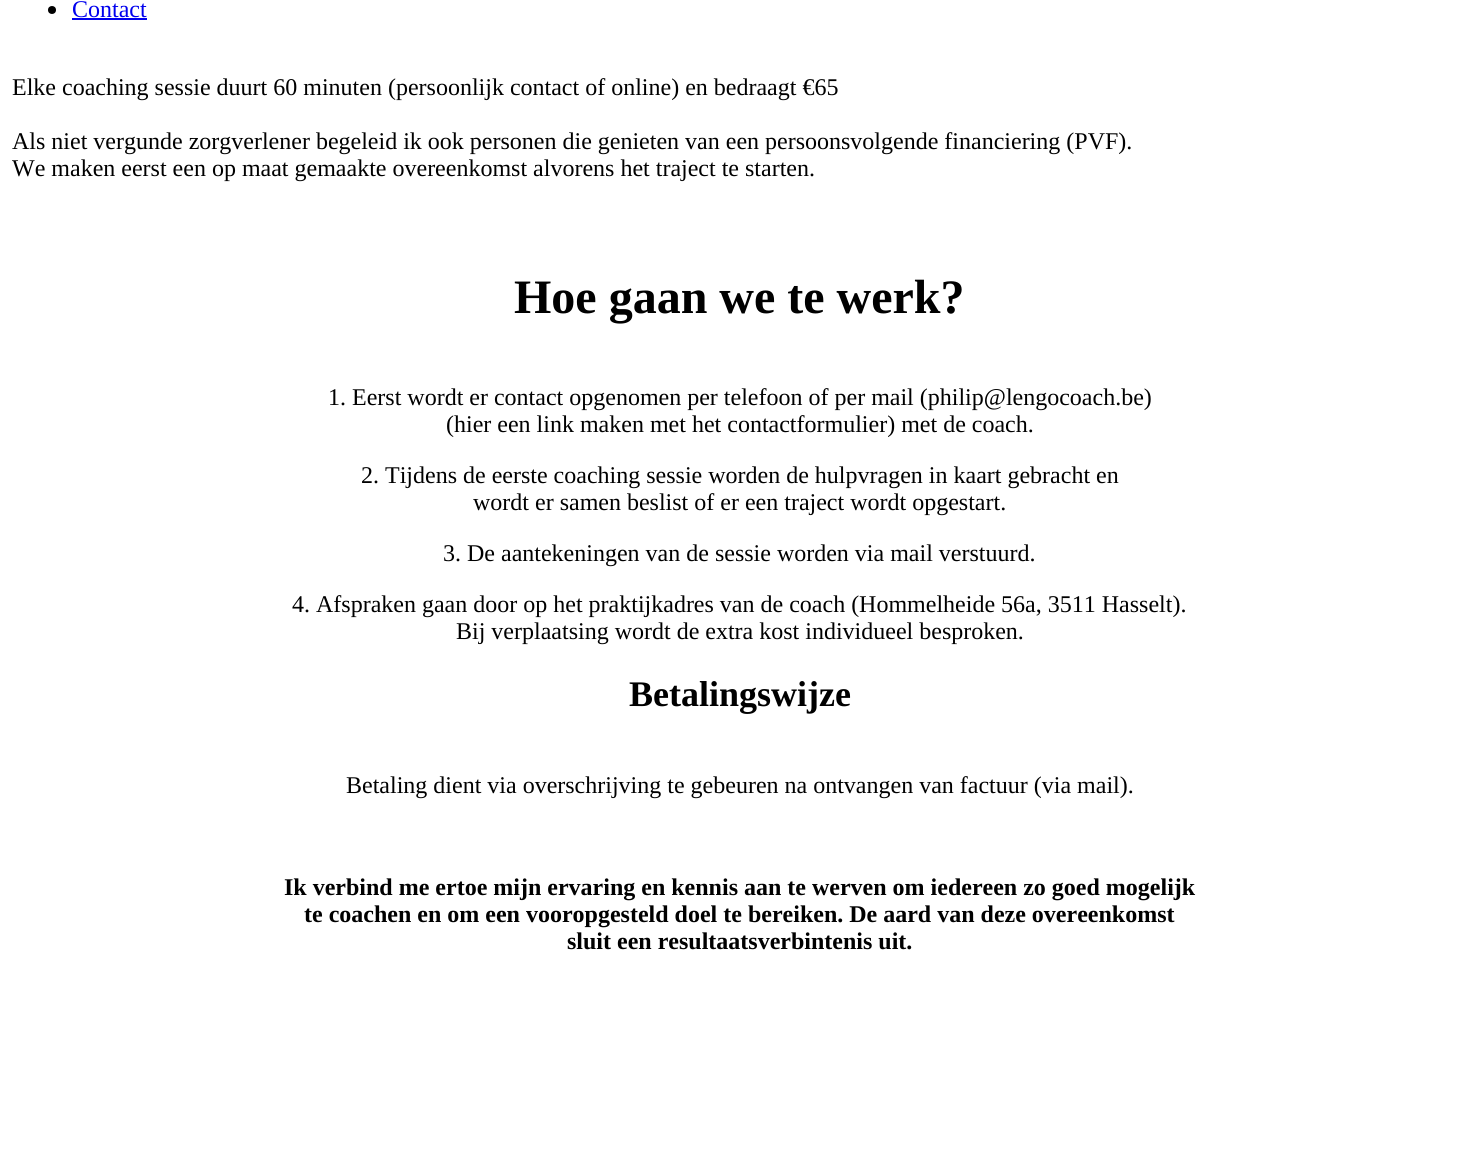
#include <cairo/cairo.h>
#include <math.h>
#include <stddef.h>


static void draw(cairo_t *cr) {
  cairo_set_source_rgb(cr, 1, 1, 1);
  cairo_paint(cr);
  cairo_set_source_rgb(cr, 0, 0, 0);
  cairo_arc(cr, 52, 10, 4, 0, 2 * M_PI);
  cairo_fill(cr);
  cairo_set_source_rgb(cr, 0, 0, 238 / 255.0);
  cairo_rectangle(cr, 72, 18, 75, 2);
  cairo_fill(cr);
  cairo_select_font_face(cr, "Liberation Serif", CAIRO_FONT_SLANT_NORMAL, CAIRO_FONT_WEIGHT_NORMAL);
  cairo_set_font_size(cr, 24);
  cairo_move_to(cr, 72, 17);
  cairo_show_text(cr, "Contact");
  cairo_set_source_rgb(cr, 0, 0, 0);
  cairo_move_to(cr, 12, 95);
  cairo_show_text(cr, "Elke coaching sessie duurt 60 minuten (persoonlijk contact of online) en bedraagt €65");
  cairo_move_to(cr, 12, 149);
  cairo_show_text(cr, "Als niet vergunde zorgverlener begeleid ik ook personen die genieten van een persoonsvolgende financiering (PVF).");
  cairo_move_to(cr, 12, 176);
  cairo_show_text(cr, "We maken eerst een op maat gemaakte overeenkomst alvorens het traject te starten.");
  cairo_select_font_face(cr, "Liberation Serif", CAIRO_FONT_SLANT_NORMAL, CAIRO_FONT_WEIGHT_BOLD);
  cairo_set_font_size(cr, 48);
  cairo_move_to(cr, 514, 313);
  cairo_show_text(cr, "Hoe gaan we te werk?");
  cairo_select_font_face(cr, "Liberation Serif", CAIRO_FONT_SLANT_NORMAL, CAIRO_FONT_WEIGHT_NORMAL);
  cairo_set_font_size(cr, 24);
  cairo_move_to(cr, 328, 405);
  cairo_show_text(cr, "1. Eerst wordt er contact opgenomen per telefoon of per mail (philip@lengocoach.be)");
  cairo_move_to(cr, 446, 432);
  cairo_show_text(cr, "(hier een link maken met het contactformulier) met de coach.");
  cairo_move_to(cr, 361, 483);
  cairo_show_text(cr, "2. Tijdens de eerste coaching sessie worden de hulpvragen in kaart gebracht en");
  cairo_move_to(cr, 473, 510);
  cairo_show_text(cr, "wordt er samen beslist of er een traject wordt opgestart.");
  cairo_move_to(cr, 443, 561);
  cairo_show_text(cr, "3. De aantekeningen van de sessie worden via mail verstuurd.");
  cairo_move_to(cr, 292, 612);
  cairo_show_text(cr, "4. Afspraken gaan door op het praktijkadres van de coach (Hommelheide 56a, 3511 Hasselt).");
  cairo_move_to(cr, 456, 639);
  cairo_show_text(cr, "Bij verplaatsing wordt de extra kost individueel besproken.");
  cairo_select_font_face(cr, "Liberation Serif", CAIRO_FONT_SLANT_NORMAL, CAIRO_FONT_WEIGHT_BOLD);
  cairo_set_font_size(cr, 36);
  cairo_move_to(cr, 629, 706);
  cairo_show_text(cr, "Betalingswijze");
  cairo_select_font_face(cr, "Liberation Serif", CAIRO_FONT_SLANT_NORMAL, CAIRO_FONT_WEIGHT_NORMAL);
  cairo_set_font_size(cr, 24);
  cairo_move_to(cr, 346, 793);
  cairo_show_text(cr, "Betaling dient via overschrijving te gebeuren na ontvangen van factuur (via mail).");
  cairo_select_font_face(cr, "Liberation Serif", CAIRO_FONT_SLANT_NORMAL, CAIRO_FONT_WEIGHT_BOLD);
  cairo_move_to(cr, 284, 895);
  cairo_show_text(cr, "Ik verbind me ertoe mijn ervaring en kennis aan te werven om iedereen zo goed mogelijk");
  cairo_move_to(cr, 304, 922);
  cairo_show_text(cr, "te coachen en om een vooropgesteld doel te bereiken. De aard van deze overeenkomst");
  cairo_move_to(cr, 567, 949);
  cairo_show_text(cr, "sluit een resultaatsverbintenis uit.");
}

int main(void) {
  cairo_surface_t *surface = cairo_image_surface_create(CAIRO_FORMAT_RGB24, 1479, 1155);
  cairo_t *cr = cairo_create(surface);
  cairo_font_options_t *options = cairo_font_options_create();
  cairo_font_options_set_hint_metrics(options, CAIRO_HINT_METRICS_OFF);
  cairo_font_options_set_hint_style(options, CAIRO_HINT_STYLE_NONE);
  cairo_set_font_options(cr, options);
  cairo_set_miter_limit(cr, 4);
  draw(cr);
  cairo_surface_write_to_png(surface, "out.png");
  cairo_font_options_destroy(options);
  cairo_destroy(cr);
  cairo_surface_destroy(surface);
  return 0;
}
